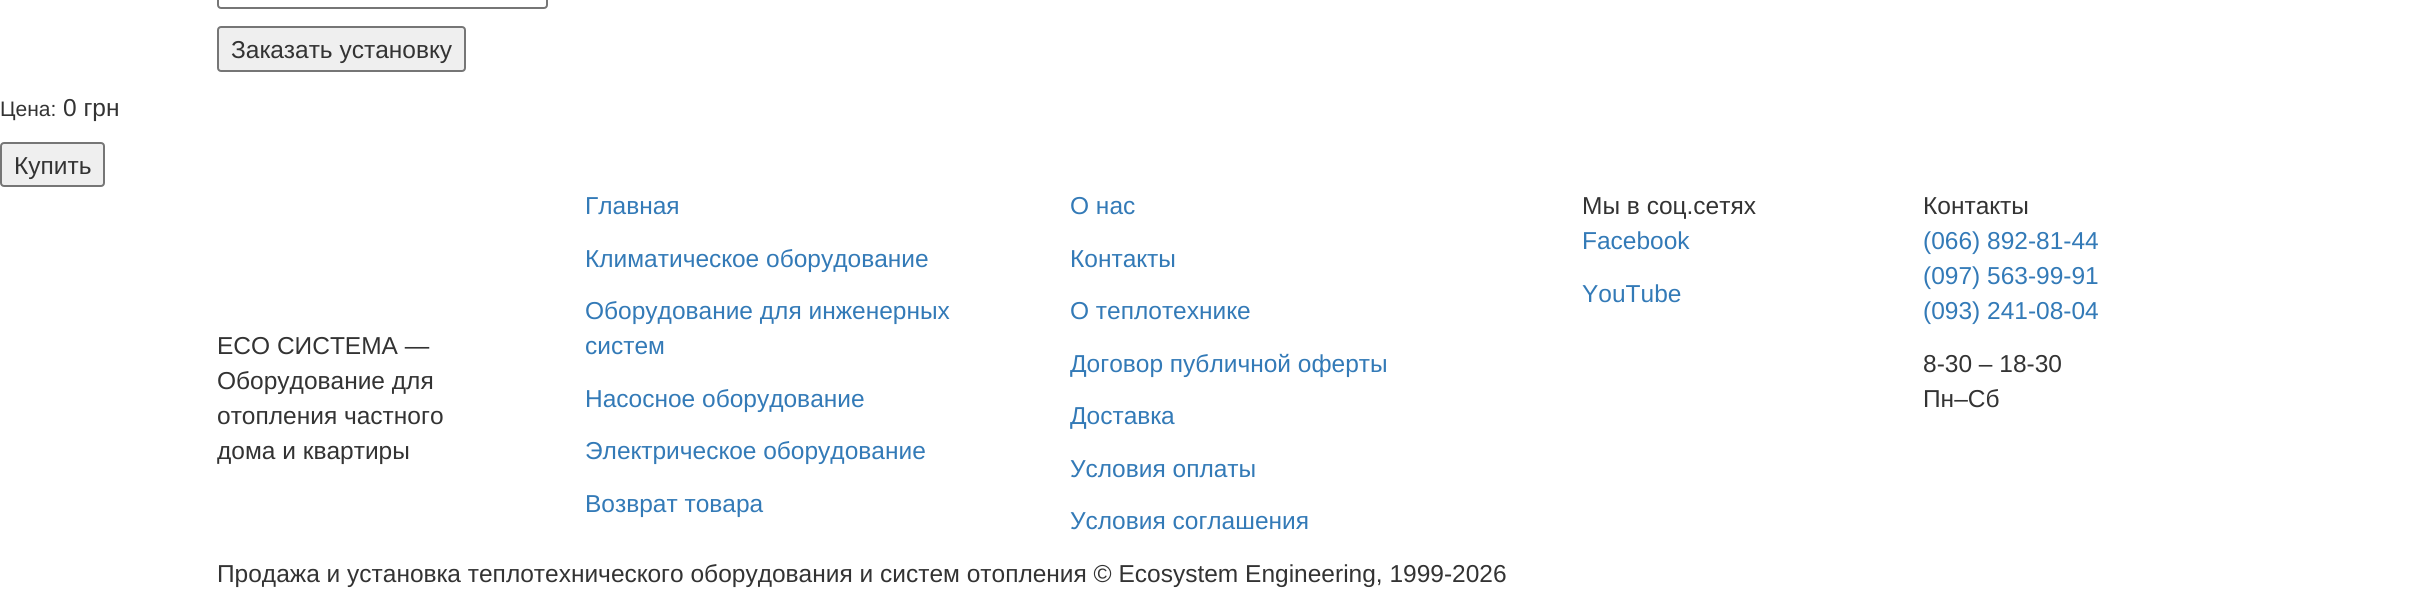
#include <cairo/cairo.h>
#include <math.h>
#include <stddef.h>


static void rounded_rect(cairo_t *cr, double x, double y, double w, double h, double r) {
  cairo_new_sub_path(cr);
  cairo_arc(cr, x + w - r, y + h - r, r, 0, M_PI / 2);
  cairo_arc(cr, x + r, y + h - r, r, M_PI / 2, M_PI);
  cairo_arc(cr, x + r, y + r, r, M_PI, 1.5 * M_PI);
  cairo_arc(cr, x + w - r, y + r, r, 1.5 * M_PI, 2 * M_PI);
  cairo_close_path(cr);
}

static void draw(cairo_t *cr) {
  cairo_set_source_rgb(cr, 1, 1, 1);
  cairo_paint(cr);
  rounded_rect(cr, 218, -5, 329, 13, 3);
  cairo_set_source_rgb(cr, 118 / 255.0, 118 / 255.0, 118 / 255.0);
  cairo_stroke(cr);
  cairo_set_source_rgb(cr, 239 / 255.0, 239 / 255.0, 239 / 255.0);
  rounded_rect(cr, 218, 27, 247, 44, 3);
  cairo_fill_preserve(cr);
  cairo_set_source_rgb(cr, 118 / 255.0, 118 / 255.0, 118 / 255.0);
  cairo_stroke(cr);
  cairo_set_source_rgb(cr, 239 / 255.0, 239 / 255.0, 239 / 255.0);
  rounded_rect(cr, 1, 143, 103, 43, 3);
  cairo_fill_preserve(cr);
  cairo_set_source_rgb(cr, 118 / 255.0, 118 / 255.0, 118 / 255.0);
  cairo_stroke(cr);
  cairo_select_font_face(cr, "Liberation Sans", CAIRO_FONT_SLANT_NORMAL, CAIRO_FONT_WEIGHT_NORMAL);
  cairo_set_font_size(cr, 24.5);
  cairo_set_source_rgb(cr, 51 / 255.0, 51 / 255.0, 51 / 255.0);
  cairo_move_to(cr, 231, 58);
  cairo_show_text(cr, "Заказать установку");
  cairo_set_font_size(cr, 21);
  cairo_move_to(cr, 0, 116);
  cairo_show_text(cr, "Цена:");
  cairo_set_font_size(cr, 24.5);
  cairo_move_to(cr, 63, 116);
  cairo_show_text(cr, "0 грн");
  cairo_move_to(cr, 14, 174);
  cairo_show_text(cr, "Купить");
  cairo_move_to(cr, 217, 354);
  cairo_show_text(cr, "ECO СИСТЕМА —");
  cairo_move_to(cr, 217, 389);
  cairo_show_text(cr, "Оборудование для");
  cairo_move_to(cr, 217, 424);
  cairo_show_text(cr, "отопления частного");
  cairo_move_to(cr, 217, 459);
  cairo_show_text(cr, "дома и квартиры");
  cairo_set_source_rgb(cr, 51 / 255.0, 122 / 255.0, 183 / 255.0);
  cairo_move_to(cr, 585, 214);
  cairo_show_text(cr, "Главная");
  cairo_move_to(cr, 585, 267);
  cairo_show_text(cr, "Климатическое оборудование");
  cairo_move_to(cr, 585, 319);
  cairo_show_text(cr, "Оборудование для инженерных");
  cairo_move_to(cr, 585, 354);
  cairo_show_text(cr, "систем");
  cairo_move_to(cr, 585, 407);
  cairo_show_text(cr, "Насосное оборудование");
  cairo_move_to(cr, 585, 459);
  cairo_show_text(cr, "Электрическое оборудование");
  cairo_move_to(cr, 585, 512);
  cairo_show_text(cr, "Возврат товара");
  cairo_move_to(cr, 1070, 214);
  cairo_show_text(cr, "О нас");
  cairo_move_to(cr, 1070, 267);
  cairo_show_text(cr, "Контакты");
  cairo_move_to(cr, 1070, 319);
  cairo_show_text(cr, "О теплотехнике");
  cairo_move_to(cr, 1070, 372);
  cairo_show_text(cr, "Договор публичной оферты");
  cairo_move_to(cr, 1070, 424);
  cairo_show_text(cr, "Доставка");
  cairo_move_to(cr, 1070, 477);
  cairo_show_text(cr, "Условия оплаты");
  cairo_move_to(cr, 1070, 529);
  cairo_show_text(cr, "Условия соглашения");
  cairo_set_source_rgb(cr, 51 / 255.0, 51 / 255.0, 51 / 255.0);
  cairo_move_to(cr, 1582, 214);
  cairo_show_text(cr, "Мы в соц.сетях");
  cairo_set_source_rgb(cr, 51 / 255.0, 122 / 255.0, 183 / 255.0);
  cairo_move_to(cr, 1582, 249);
  cairo_show_text(cr, "Facebook");
  cairo_move_to(cr, 1582, 302);
  cairo_show_text(cr, "YouTube");
  cairo_set_source_rgb(cr, 51 / 255.0, 51 / 255.0, 51 / 255.0);
  cairo_move_to(cr, 1923, 214);
  cairo_show_text(cr, "Контакты");
  cairo_set_source_rgb(cr, 51 / 255.0, 122 / 255.0, 183 / 255.0);
  cairo_move_to(cr, 1923, 249);
  cairo_show_text(cr, "(066) 892-81-44");
  cairo_move_to(cr, 1923, 284);
  cairo_show_text(cr, "(097) 563-99-91");
  cairo_move_to(cr, 1923, 319);
  cairo_show_text(cr, "(093) 241-08-04");
  cairo_set_source_rgb(cr, 51 / 255.0, 51 / 255.0, 51 / 255.0);
  cairo_move_to(cr, 1923, 372);
  cairo_show_text(cr, "8-30 – 18-30");
  cairo_move_to(cr, 1923, 407);
  cairo_show_text(cr, "Пн–Сб");
  cairo_move_to(cr, 217, 582);
  cairo_show_text(cr, "Продажа и установка теплотехнического оборудования и систем отопления © Ecosystem Engineering, 1999-2026");
}

int main(void) {
  cairo_surface_t *surface = cairo_image_surface_create(CAIRO_FORMAT_RGB24, 2428, 607);
  cairo_t *cr = cairo_create(surface);
  cairo_font_options_t *options = cairo_font_options_create();
  cairo_font_options_set_hint_metrics(options, CAIRO_HINT_METRICS_OFF);
  cairo_font_options_set_hint_style(options, CAIRO_HINT_STYLE_NONE);
  cairo_set_font_options(cr, options);
  cairo_set_miter_limit(cr, 4);
  draw(cr);
  cairo_surface_write_to_png(surface, "out.png");
  cairo_font_options_destroy(options);
  cairo_destroy(cr);
  cairo_surface_destroy(surface);
  return 0;
}
